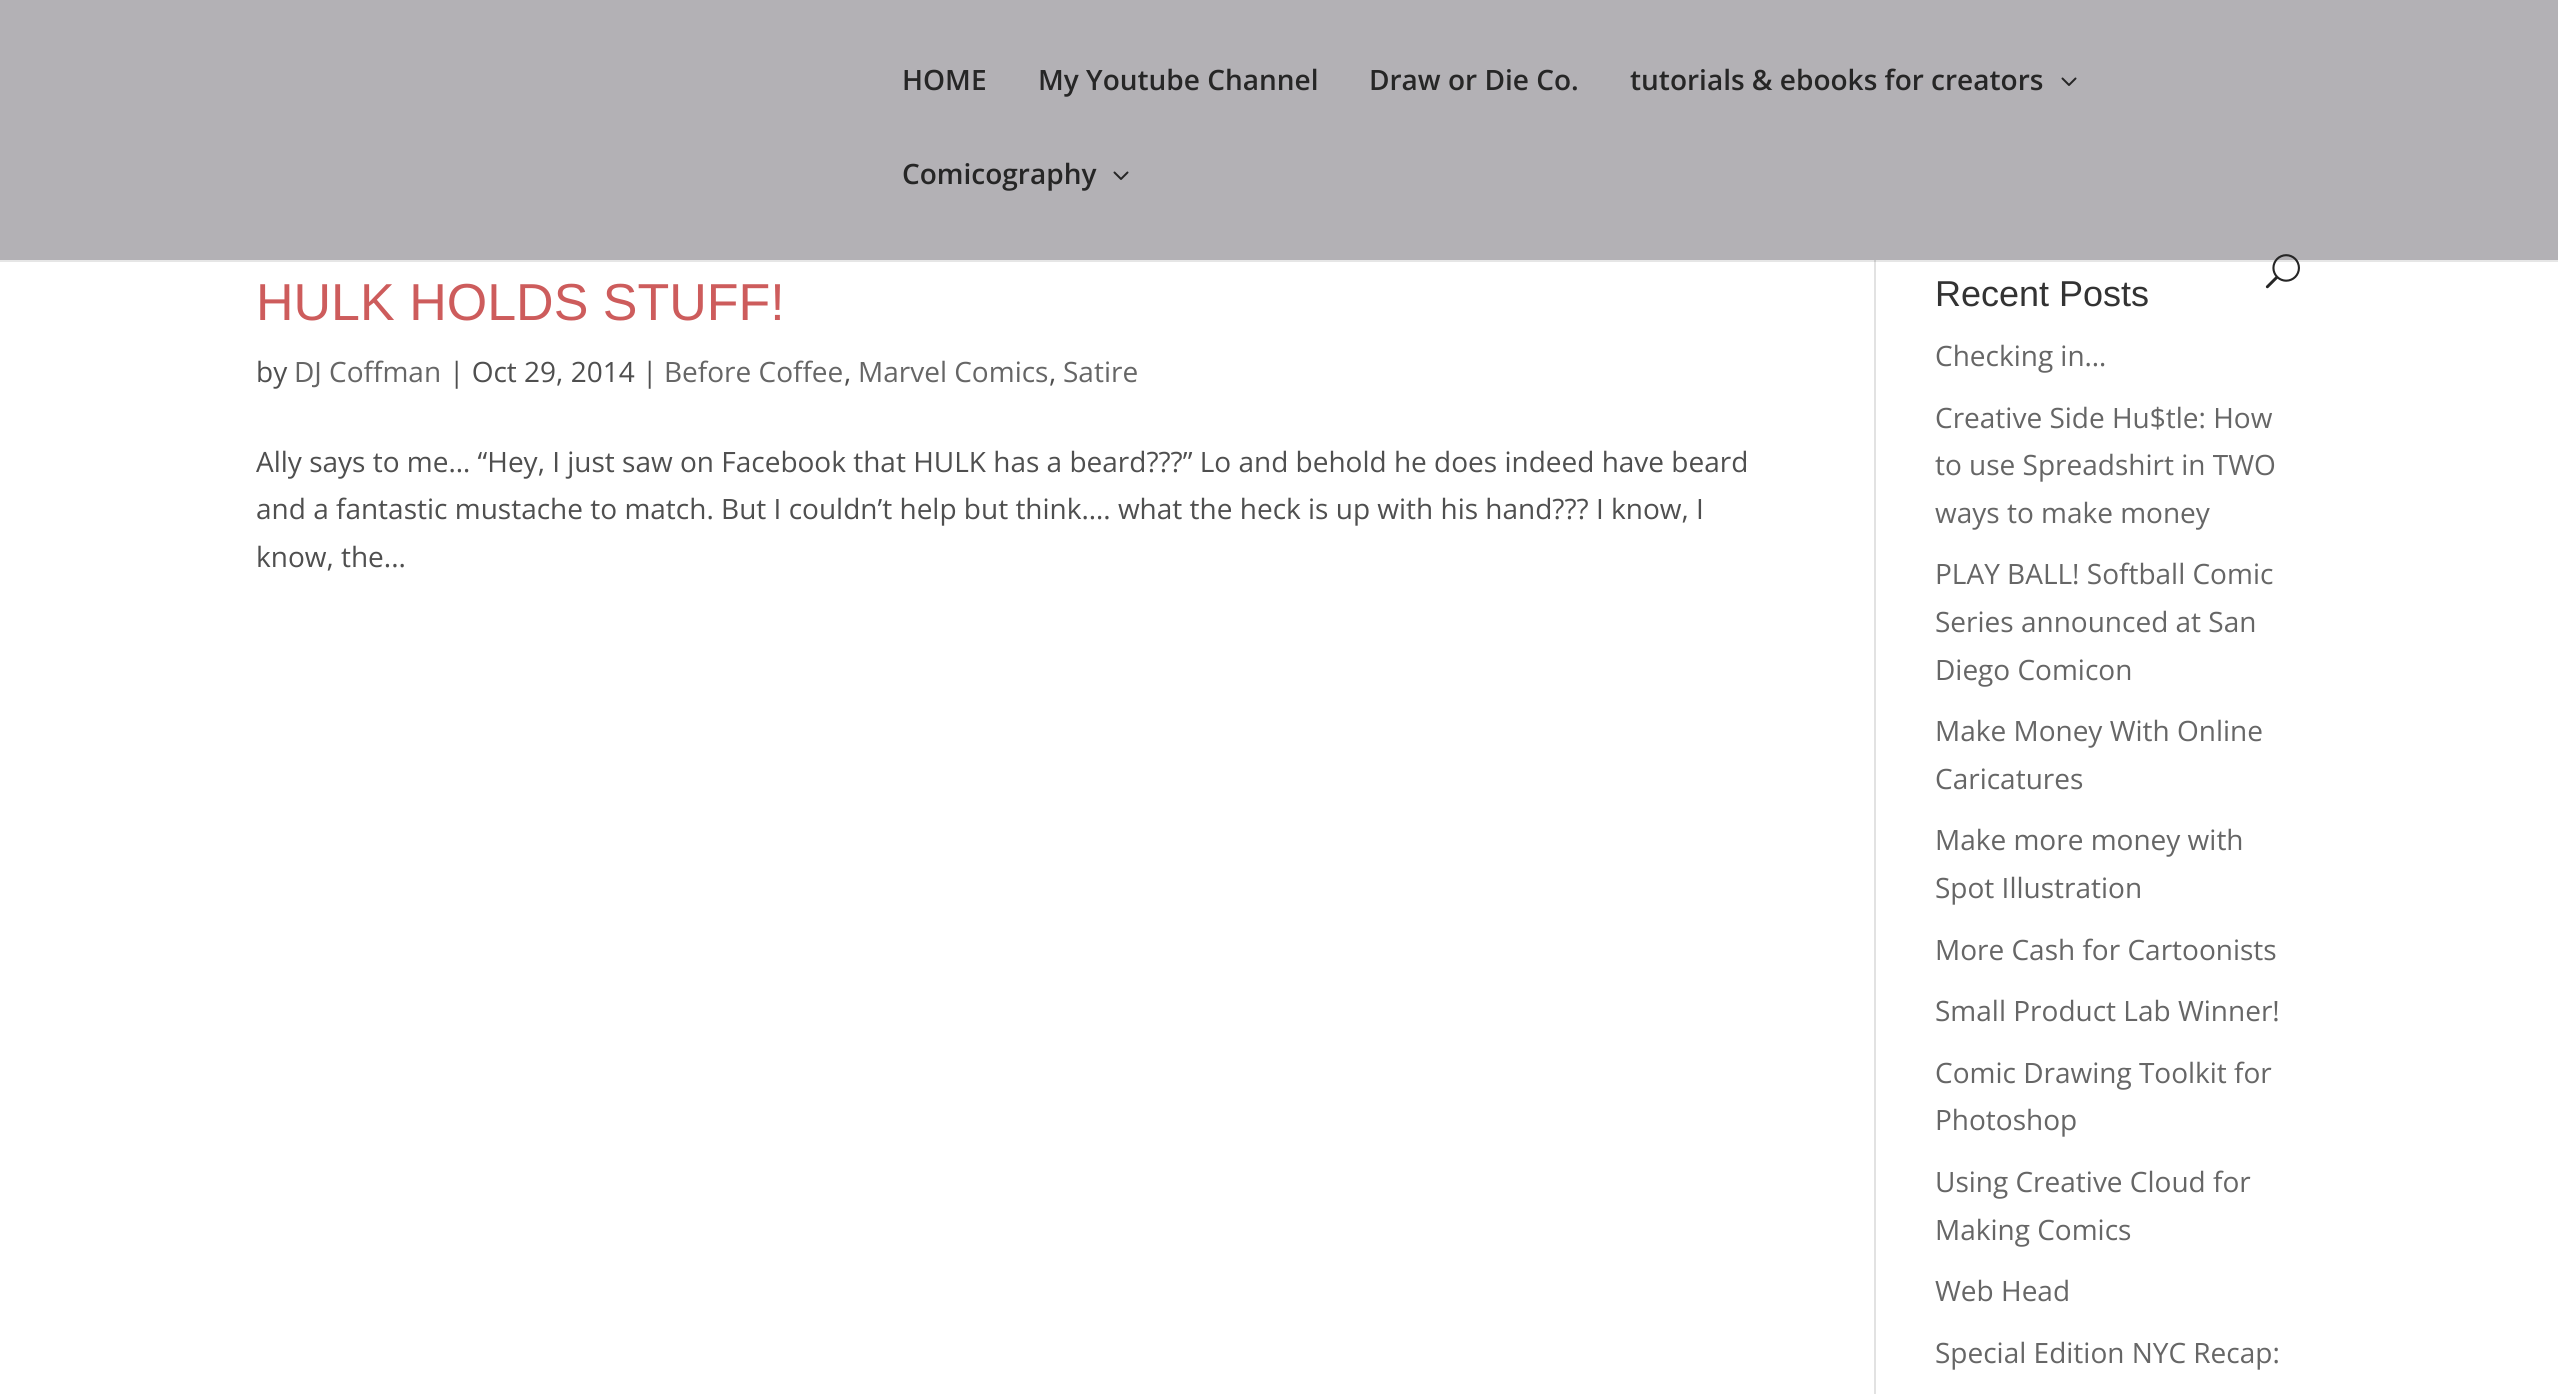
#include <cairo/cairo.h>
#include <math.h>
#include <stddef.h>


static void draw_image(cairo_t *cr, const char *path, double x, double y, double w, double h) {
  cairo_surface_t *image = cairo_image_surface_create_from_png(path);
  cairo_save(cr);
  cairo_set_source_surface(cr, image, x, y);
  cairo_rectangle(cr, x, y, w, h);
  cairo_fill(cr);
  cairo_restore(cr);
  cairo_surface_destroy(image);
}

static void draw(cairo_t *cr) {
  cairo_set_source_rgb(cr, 1, 1, 1);
  cairo_paint(cr);
  cairo_set_source_rgb(cr, 230 / 255.0, 230 / 255.0, 230 / 255.0);
  cairo_rectangle(cr, 0, 260, 2558, 2);
  cairo_fill(cr);
  cairo_set_source_rgb(cr, 179 / 255.0, 177 / 255.0, 181 / 255.0);
  cairo_rectangle(cr, 0, 0, 2558, 260);
  cairo_fill(cr);
  draw_image(cr, "images/1.png", 2061, 77, 16, 9);
  draw_image(cr, "images/1.png", 1113, 171, 16, 9);
  draw_image(cr, "images/2.png", 2265, 254, 35, 35);
  cairo_set_source_rgb(cr, 226 / 255.0, 226 / 255.0, 226 / 255.0);
  cairo_rectangle(cr, 1874, 262, 2, 1132);
  cairo_fill(cr);
  cairo_set_source_rgb(cr, 203 / 255.0, 203 / 255.0, 203 / 255.0);
  cairo_rectangle(cr, 1874, 260, 2, 2);
  cairo_fill(cr);
  cairo_select_font_face(cr, "Open Sans SemiBold", CAIRO_FONT_SLANT_NORMAL, CAIRO_FONT_WEIGHT_NORMAL);
  cairo_set_font_size(cr, 28);
  cairo_set_source_rgb(cr, 38 / 255.0, 38 / 255.0, 38 / 255.0);
  cairo_move_to(cr, 902, 90);
  cairo_show_text(cr, "HOME");
  cairo_move_to(cr, 1038, 90);
  cairo_show_text(cr, "My Youtube Channel");
  cairo_move_to(cr, 1369, 90);
  cairo_show_text(cr, "Draw or Die Co.");
  cairo_move_to(cr, 1630, 90);
  cairo_show_text(cr, "tutorials & ebooks for creators");
  cairo_move_to(cr, 902, 184);
  cairo_show_text(cr, "Comicography");
  cairo_select_font_face(cr, "Liberation Sans", CAIRO_FONT_SLANT_NORMAL, CAIRO_FONT_WEIGHT_NORMAL);
  cairo_set_font_size(cr, 52);
  cairo_set_source_rgb(cr, 205 / 255.0, 92 / 255.0, 92 / 255.0);
  cairo_move_to(cr, 256, 320);
  cairo_show_text(cr, "HULK HOLDS STUFF!");
  cairo_select_font_face(cr, "Open Sans", CAIRO_FONT_SLANT_NORMAL, CAIRO_FONT_WEIGHT_NORMAL);
  cairo_set_font_size(cr, 28);
  cairo_set_source_rgb(cr, 79 / 255.0, 79 / 255.0, 79 / 255.0);
  cairo_move_to(cr, 256, 382);
  cairo_show_text(cr, "by");
  cairo_set_source_rgb(cr, 102 / 255.0, 102 / 255.0, 102 / 255.0);
  cairo_move_to(cr, 294, 382);
  cairo_show_text(cr, "DJ Coffman");
  cairo_set_source_rgb(cr, 79 / 255.0, 79 / 255.0, 79 / 255.0);
  cairo_move_to(cr, 449, 382);
  cairo_show_text(cr, "| Oct 29, 2014 |");
  cairo_set_source_rgb(cr, 102 / 255.0, 102 / 255.0, 102 / 255.0);
  cairo_move_to(cr, 664, 382);
  cairo_show_text(cr, "Before Coffee");
  cairo_set_source_rgb(cr, 79 / 255.0, 79 / 255.0, 79 / 255.0);
  cairo_move_to(cr, 844, 382);
  cairo_show_text(cr, ",");
  cairo_set_source_rgb(cr, 102 / 255.0, 102 / 255.0, 102 / 255.0);
  cairo_move_to(cr, 858, 382);
  cairo_show_text(cr, "Marvel Comics");
  cairo_set_source_rgb(cr, 79 / 255.0, 79 / 255.0, 79 / 255.0);
  cairo_move_to(cr, 1049, 382);
  cairo_show_text(cr, ",");
  cairo_set_source_rgb(cr, 102 / 255.0, 102 / 255.0, 102 / 255.0);
  cairo_move_to(cr, 1063, 382);
  cairo_show_text(cr, "Satire");
  cairo_set_source_rgb(cr, 79 / 255.0, 79 / 255.0, 79 / 255.0);
  cairo_move_to(cr, 256, 472);
  cairo_show_text(cr, "Ally says to me… “Hey, I just saw on Facebook that HULK has a beard?\077?” Lo and behold he does indeed have beard");
  cairo_move_to(cr, 256, 519);
  cairo_show_text(cr, "and a fantastic mustache to match. But I couldn’t help but think…. what the heck is up with his hand?\077? I know, I");
  cairo_move_to(cr, 256, 567);
  cairo_show_text(cr, "know, the...");
  cairo_select_font_face(cr, "Liberation Sans", CAIRO_FONT_SLANT_NORMAL, CAIRO_FONT_WEIGHT_NORMAL);
  cairo_set_font_size(cr, 36);
  cairo_set_source_rgb(cr, 51 / 255.0, 51 / 255.0, 51 / 255.0);
  cairo_move_to(cr, 1935, 306);
  cairo_show_text(cr, "Recent Posts");
  cairo_select_font_face(cr, "Open Sans", CAIRO_FONT_SLANT_NORMAL, CAIRO_FONT_WEIGHT_NORMAL);
  cairo_set_font_size(cr, 28);
  cairo_set_source_rgb(cr, 102 / 255.0, 102 / 255.0, 102 / 255.0);
  cairo_move_to(cr, 1935, 366);
  cairo_show_text(cr, "Checking in…");
  cairo_move_to(cr, 1935, 428);
  cairo_show_text(cr, "Creative Side Hu$tle: How");
  cairo_move_to(cr, 1935, 475);
  cairo_show_text(cr, "to use Spreadshirt in TWO");
  cairo_move_to(cr, 1935, 523);
  cairo_show_text(cr, "ways to make money");
  cairo_move_to(cr, 1935, 584);
  cairo_show_text(cr, "PLAY BALL! Softball Comic");
  cairo_move_to(cr, 1935, 632);
  cairo_show_text(cr, "Series announced at San");
  cairo_move_to(cr, 1935, 680);
  cairo_show_text(cr, "Diego Comicon");
  cairo_move_to(cr, 1935, 741);
  cairo_show_text(cr, "Make Money With Online");
  cairo_move_to(cr, 1935, 789);
  cairo_show_text(cr, "Caricatures");
  cairo_move_to(cr, 1935, 850);
  cairo_show_text(cr, "Make more money with");
  cairo_move_to(cr, 1935, 898);
  cairo_show_text(cr, "Spot Illustration");
  cairo_move_to(cr, 1935, 960);
  cairo_show_text(cr, "More Cash for Cartoonists");
  cairo_move_to(cr, 1935, 1021);
  cairo_show_text(cr, "Small Product Lab Winner!");
  cairo_move_to(cr, 1935, 1083);
  cairo_show_text(cr, "Comic Drawing Toolkit for");
  cairo_move_to(cr, 1935, 1130);
  cairo_show_text(cr, "Photoshop");
  cairo_move_to(cr, 1935, 1192);
  cairo_show_text(cr, "Using Creative Cloud for");
  cairo_move_to(cr, 1935, 1240);
  cairo_show_text(cr, "Making Comics");
  cairo_move_to(cr, 1935, 1301);
  cairo_show_text(cr, "Web Head");
  cairo_move_to(cr, 1935, 1363);
  cairo_show_text(cr, "Special Edition NYC Recap:");
}

int main(void) {
  cairo_surface_t *surface = cairo_image_surface_create(CAIRO_FORMAT_RGB24, 2558, 1394);
  cairo_t *cr = cairo_create(surface);
  cairo_font_options_t *options = cairo_font_options_create();
  cairo_font_options_set_hint_metrics(options, CAIRO_HINT_METRICS_OFF);
  cairo_font_options_set_hint_style(options, CAIRO_HINT_STYLE_NONE);
  cairo_set_font_options(cr, options);
  cairo_set_miter_limit(cr, 4);
  draw(cr);
  cairo_surface_write_to_png(surface, "out.png");
  cairo_font_options_destroy(options);
  cairo_destroy(cr);
  cairo_surface_destroy(surface);
  return 0;
}
